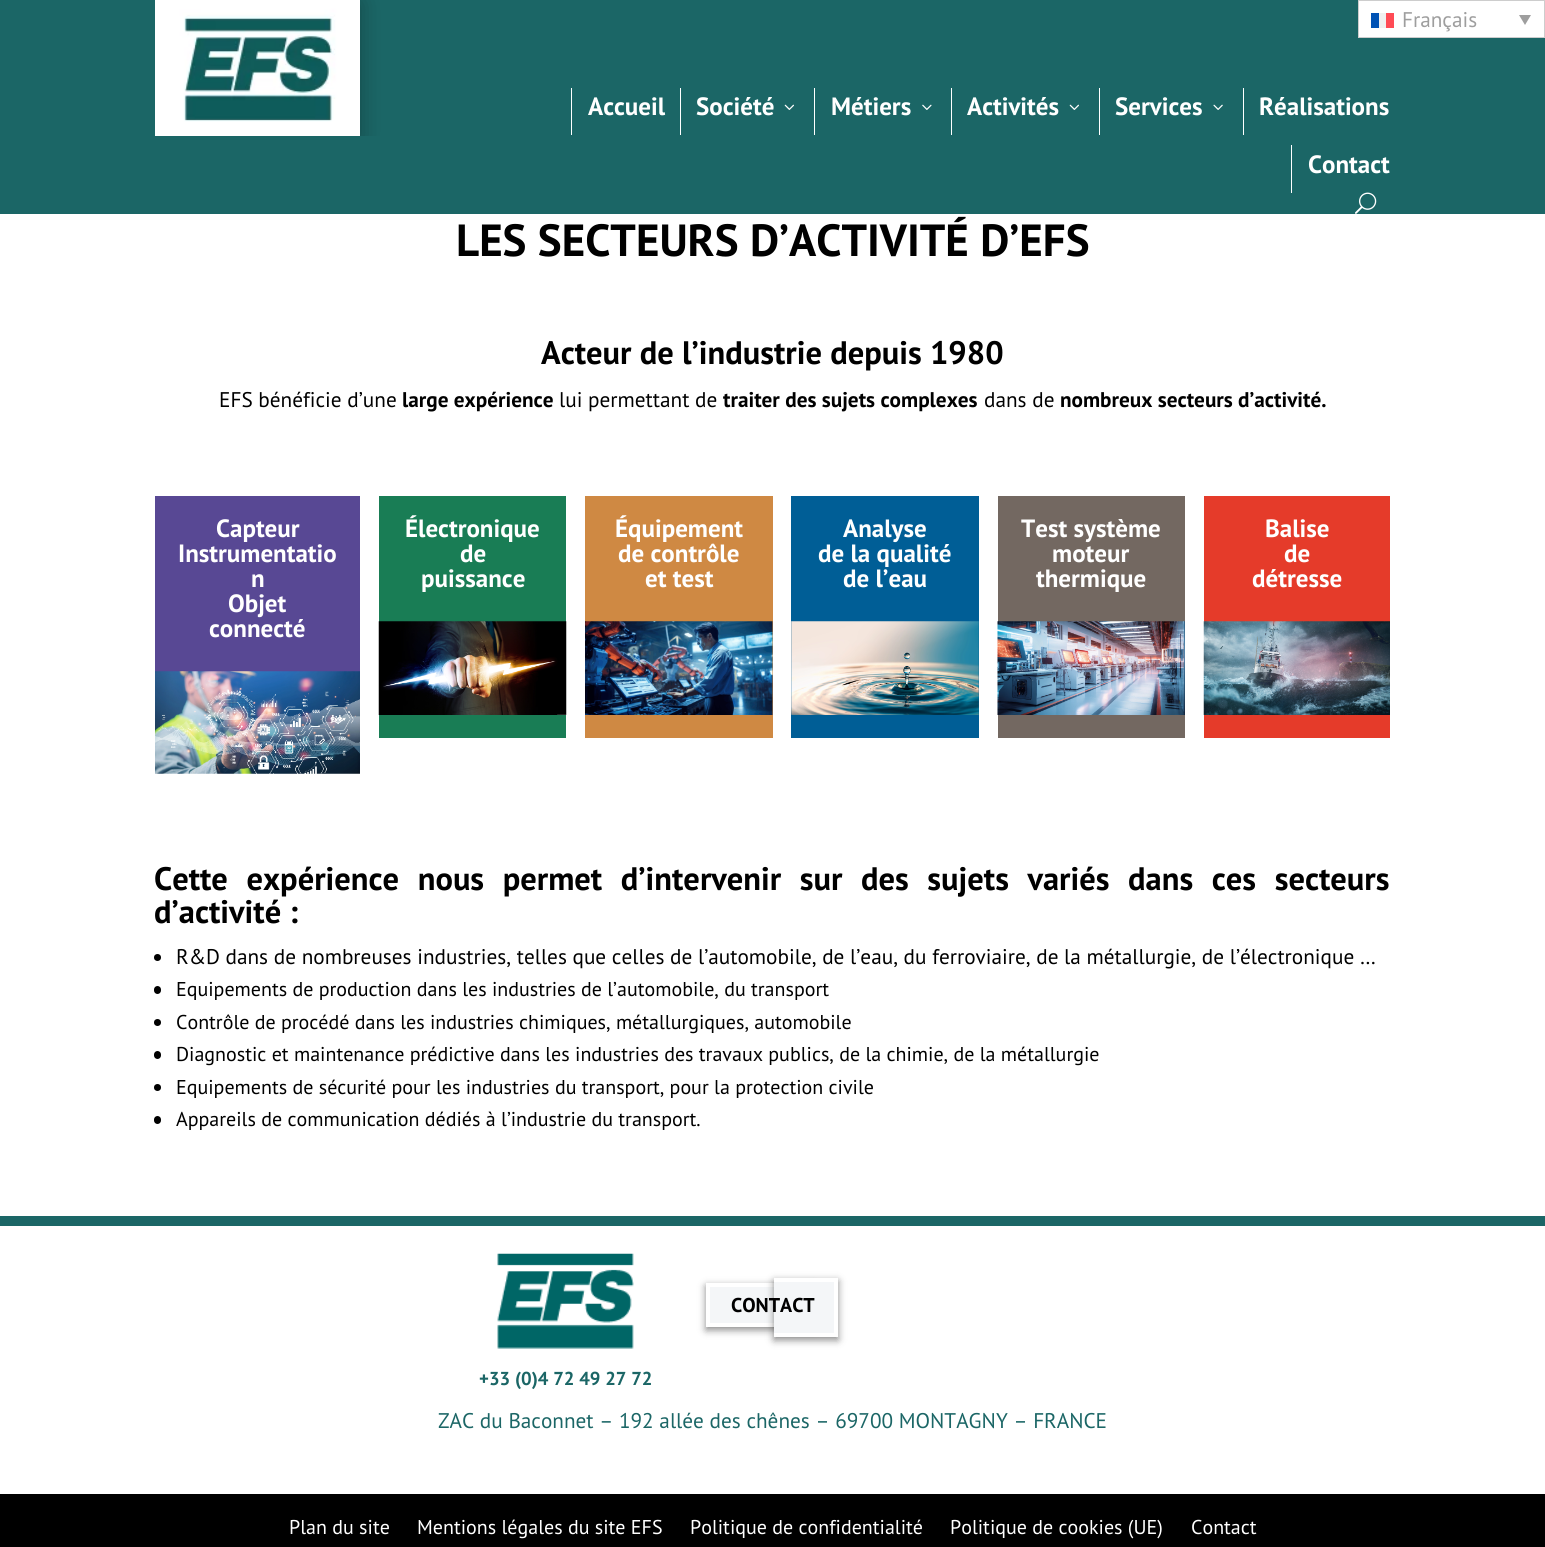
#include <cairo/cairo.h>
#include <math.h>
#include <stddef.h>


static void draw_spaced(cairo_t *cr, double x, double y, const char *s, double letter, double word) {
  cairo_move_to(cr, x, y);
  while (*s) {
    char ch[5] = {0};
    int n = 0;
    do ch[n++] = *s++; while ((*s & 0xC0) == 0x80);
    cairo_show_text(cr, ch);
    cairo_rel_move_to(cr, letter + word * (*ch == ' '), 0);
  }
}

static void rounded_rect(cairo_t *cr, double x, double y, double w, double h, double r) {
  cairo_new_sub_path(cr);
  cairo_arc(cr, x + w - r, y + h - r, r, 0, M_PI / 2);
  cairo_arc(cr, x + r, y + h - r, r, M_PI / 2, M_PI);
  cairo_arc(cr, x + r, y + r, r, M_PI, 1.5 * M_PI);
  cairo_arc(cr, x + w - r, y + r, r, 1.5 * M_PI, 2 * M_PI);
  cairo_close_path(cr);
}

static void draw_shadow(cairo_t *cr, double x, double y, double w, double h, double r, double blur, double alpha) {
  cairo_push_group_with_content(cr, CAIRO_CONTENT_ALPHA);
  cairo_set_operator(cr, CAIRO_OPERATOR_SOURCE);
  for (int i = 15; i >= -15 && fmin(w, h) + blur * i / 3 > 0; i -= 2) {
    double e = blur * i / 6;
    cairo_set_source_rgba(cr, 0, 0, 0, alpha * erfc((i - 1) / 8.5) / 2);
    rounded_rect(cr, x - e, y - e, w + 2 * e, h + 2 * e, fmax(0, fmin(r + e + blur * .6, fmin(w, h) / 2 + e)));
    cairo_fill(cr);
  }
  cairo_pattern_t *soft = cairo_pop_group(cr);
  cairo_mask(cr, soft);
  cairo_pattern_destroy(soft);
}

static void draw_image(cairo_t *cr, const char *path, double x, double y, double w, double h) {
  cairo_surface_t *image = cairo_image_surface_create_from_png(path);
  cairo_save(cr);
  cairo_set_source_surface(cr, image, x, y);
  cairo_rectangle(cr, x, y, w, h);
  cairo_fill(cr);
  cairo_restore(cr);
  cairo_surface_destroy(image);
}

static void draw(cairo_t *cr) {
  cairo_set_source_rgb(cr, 1, 1, 1);
  cairo_paint(cr);
  cairo_set_source_rgb(cr, 27 / 255.0, 102 / 255.0, 102 / 255.0);
  cairo_rectangle(cr, 0, 0, 1545, 214);
  cairo_fill(cr);
  cairo_save(cr);
  cairo_rectangle(cr, 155, 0, 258, 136);
  cairo_clip(cr);
  cairo_set_source_rgb(cr, 0, 0, 0);
  draw_shadow(cr, 155, 3, 205, 136, 0, 11, 0.3);
  cairo_restore(cr);
  draw_image(cr, "images/1.png", 155, 0, 205, 136);
  cairo_set_source_rgb(cr, 1, 1, 1);
  cairo_rectangle(cr, 1358.5, 0.5, 186, 37);
  cairo_fill_preserve(cr);
  cairo_set_source_rgb(cr, 205 / 255.0, 205 / 255.0, 205 / 255.0);
  cairo_set_line_width(cr, 1);
  cairo_stroke(cr);
  cairo_set_source_rgb(cr, 0, 82 / 255.0, 180 / 255.0);
  cairo_rectangle(cr, 1371, 13, 8, 15);
  cairo_fill(cr);
  cairo_set_source_rgb(cr, 240 / 255.0, 240 / 255.0, 240 / 255.0);
  cairo_rectangle(cr, 1379, 13, 7, 15);
  cairo_fill(cr);
  cairo_set_source_rgb(cr, 1, 75 / 255.0, 85 / 255.0);
  cairo_rectangle(cr, 1386, 13, 8, 15);
  cairo_fill(cr);
  cairo_set_source_rgb(cr, 158 / 255.0, 158 / 255.0, 158 / 255.0);
  cairo_new_path(cr);
  cairo_move_to(cr, 1519, 15);
  cairo_line_to(cr, 1531, 15);
  cairo_line_to(cr, 1525, 25);
  cairo_close_path(cr);
  cairo_fill(cr);
  cairo_set_source_rgb(cr, 1, 1, 1);
  cairo_rectangle(cr, 571, 88, 1, 47);
  cairo_fill(cr);
  cairo_rectangle(cr, 680, 88, 1, 47);
  cairo_fill(cr);
  draw_image(cr, "images/2.png", 784, 104, 10, 6);
  cairo_rectangle(cr, 814, 88, 1, 47);
  cairo_fill(cr);
  draw_image(cr, "images/3.png", 922, 104, 10, 6);
  cairo_rectangle(cr, 951, 88, 1, 47);
  cairo_fill(cr);
  draw_image(cr, "images/2.png", 1069, 104, 10, 6);
  cairo_rectangle(cr, 1099, 88, 1, 47);
  cairo_fill(cr);
  draw_image(cr, "images/4.png", 1213, 104, 10, 6);
  cairo_rectangle(cr, 1243, 88, 1, 47);
  cairo_fill(cr);
  cairo_rectangle(cr, 1291, 145, 1, 48);
  cairo_fill(cr);
  draw_image(cr, "images/5.png", 1355, 192, 22, 22);
  cairo_set_source_rgb(cr, 88 / 255.0, 72 / 255.0, 148 / 255.0);
  cairo_rectangle(cr, 155, 496, 205, 176);
  cairo_fill(cr);
  draw_image(cr, "images/6.png", 155, 671, 205, 103);
  cairo_set_source_rgb(cr, 25 / 255.0, 125 / 255.0, 85 / 255.0);
  cairo_rectangle(cr, 379, 496, 187, 242);
  cairo_fill(cr);
  draw_image(cr, "images/7.png", 378, 621, 189, 94);
  cairo_set_source_rgb(cr, 207 / 255.0, 137 / 255.0, 67 / 255.0);
  cairo_rectangle(cr, 585, 496, 188, 242);
  cairo_fill(cr);
  draw_image(cr, "images/8.png", 585, 621, 188, 94);
  cairo_set_source_rgb(cr, 0, 94 / 255.0, 150 / 255.0);
  cairo_rectangle(cr, 791, 496, 188, 242);
  cairo_fill(cr);
  draw_image(cr, "images/9.png", 791, 621, 188, 94);
  cairo_set_source_rgb(cr, 115 / 255.0, 104 / 255.0, 97 / 255.0);
  cairo_rectangle(cr, 998, 496, 187, 242);
  cairo_fill(cr);
  draw_image(cr, "images/10.png", 997, 621, 188, 94);
  cairo_set_source_rgb(cr, 229 / 255.0, 59 / 255.0, 42 / 255.0);
  cairo_rectangle(cr, 1204, 496, 186, 242);
  cairo_fill(cr);
  draw_image(cr, "images/11.png", 1203, 621, 187, 94);
  cairo_set_source_rgb(cr, 0, 0, 0);
  cairo_arc(cr, 157.5, 957.5, 3.5, 0, 2 * M_PI);
  cairo_fill(cr);
  rounded_rect(cr, 154, 986, 7, 8, 3.5);
  cairo_fill(cr);
  cairo_arc(cr, 157.5, 1022.5, 3.5, 0, 2 * M_PI);
  cairo_fill(cr);
  rounded_rect(cr, 154, 1051, 7, 8, 3.5);
  cairo_fill(cr);
  cairo_arc(cr, 157.5, 1087.5, 3.5, 0, 2 * M_PI);
  cairo_fill(cr);
  rounded_rect(cr, 154, 1116, 7, 8, 3.5);
  cairo_fill(cr);
  cairo_set_source_rgb(cr, 27 / 255.0, 102 / 255.0, 102 / 255.0);
  cairo_rectangle(cr, 0, 1216, 1545, 10);
  cairo_fill(cr);
  cairo_set_source_rgb(cr, 0, 0, 0);
  draw_shadow(cr, 706, 1286, 108, 44, 0, 4, 0.46);
  cairo_set_source_rgb(cr, 244 / 255.0, 246 / 255.0, 248 / 255.0);
  cairo_rectangle(cr, 710, 1287, 64, 36);
  cairo_fill(cr);
  cairo_set_source_rgb(cr, 1, 1, 1);
  cairo_rectangle(cr, 706, 1283, 68, 4);
  cairo_fill(cr);
  cairo_rectangle(cr, 706, 1323, 68, 4);
  cairo_fill(cr);
  cairo_rectangle(cr, 706, 1283, 4, 43);
  cairo_fill(cr);
  cairo_set_source_rgb(cr, 0, 0, 0);
  draw_shadow(cr, 774, 1281, 64, 59, 0, 4, 0.46);
  cairo_set_source_rgb(cr, 244 / 255.0, 246 / 255.0, 248 / 255.0);
  cairo_rectangle(cr, 774, 1282, 60, 51);
  cairo_fill(cr);
  cairo_set_source_rgb(cr, 1, 1, 1);
  cairo_rectangle(cr, 774, 1278, 64, 4);
  cairo_fill(cr);
  cairo_rectangle(cr, 834, 1278, 4, 58);
  cairo_fill(cr);
  cairo_rectangle(cr, 774, 1333, 64, 4);
  cairo_fill(cr);
  draw_image(cr, "images/12.png", 497, 1253, 137, 96);
  cairo_set_source_rgb(cr, 0, 0, 0);
  cairo_rectangle(cr, 0, 1494, 1545, 53);
  cairo_fill(cr);
  cairo_select_font_face(cr, "PT Sans", CAIRO_FONT_SLANT_NORMAL, CAIRO_FONT_WEIGHT_NORMAL);
  cairo_set_font_size(cr, 21.25);
  cairo_set_source_rgb(cr, 158 / 255.0, 158 / 255.0, 158 / 255.0);
  cairo_move_to(cr, 1402, 27);
  cairo_show_text(cr, "Français");
  cairo_select_font_face(cr, "PT Sans", CAIRO_FONT_SLANT_NORMAL, CAIRO_FONT_WEIGHT_BOLD);
  cairo_set_font_size(cr, 25);
  cairo_set_source_rgb(cr, 1, 1, 1);
  cairo_move_to(cr, 588, 115);
  cairo_show_text(cr, "Accueil");
  cairo_move_to(cr, 696, 115);
  cairo_show_text(cr, "Société");
  cairo_move_to(cr, 831, 115);
  cairo_show_text(cr, "Métiers");
  cairo_move_to(cr, 967, 115);
  cairo_show_text(cr, "Activités");
  cairo_move_to(cr, 1115, 115);
  cairo_show_text(cr, "Services");
  cairo_move_to(cr, 1259, 115);
  cairo_show_text(cr, "Réalisations");
  cairo_move_to(cr, 1308, 173);
  cairo_show_text(cr, "Contact");
  cairo_set_font_size(cr, 45);
  cairo_set_source_rgb(cr, 0, 0, 0);
  cairo_move_to(cr, 456, 256);
  cairo_show_text(cr, "LES SECTEURS D’ACTIVITÉ D’EFS");
  cairo_set_font_size(cr, 32.5);
  cairo_move_to(cr, 541, 364);
  cairo_show_text(cr, "Acteur de l’industrie depuis 1980");
  cairo_select_font_face(cr, "PT Sans", CAIRO_FONT_SLANT_NORMAL, CAIRO_FONT_WEIGHT_NORMAL);
  cairo_set_font_size(cr, 21.25);
  cairo_move_to(cr, 219, 407);
  cairo_show_text(cr, "EFS bénéficie d’une");
  cairo_select_font_face(cr, "PT Sans", CAIRO_FONT_SLANT_NORMAL, CAIRO_FONT_WEIGHT_BOLD);
  cairo_move_to(cr, 402, 407);
  cairo_show_text(cr, "large expérience");
  cairo_select_font_face(cr, "PT Sans", CAIRO_FONT_SLANT_NORMAL, CAIRO_FONT_WEIGHT_NORMAL);
  cairo_move_to(cr, 559, 407);
  cairo_show_text(cr, "lui permettant de");
  cairo_select_font_face(cr, "PT Sans", CAIRO_FONT_SLANT_NORMAL, CAIRO_FONT_WEIGHT_BOLD);
  cairo_move_to(cr, 723, 407);
  cairo_show_text(cr, "traiter des sujets complexes");
  cairo_select_font_face(cr, "PT Sans", CAIRO_FONT_SLANT_NORMAL, CAIRO_FONT_WEIGHT_NORMAL);
  cairo_move_to(cr, 984, 407);
  cairo_show_text(cr, "dans de");
  cairo_select_font_face(cr, "PT Sans", CAIRO_FONT_SLANT_NORMAL, CAIRO_FONT_WEIGHT_BOLD);
  cairo_move_to(cr, 1060, 407);
  cairo_show_text(cr, "nombreux secteurs d’activité.");
  cairo_set_font_size(cr, 25);
  cairo_set_source_rgb(cr, 1, 1, 1);
  cairo_move_to(cr, 216, 537);
  cairo_show_text(cr, "Capteur");
  cairo_move_to(cr, 178, 562);
  cairo_show_text(cr, "Instrumentatio");
  cairo_move_to(cr, 251, 587);
  cairo_show_text(cr, "n");
  cairo_move_to(cr, 228, 612);
  cairo_show_text(cr, "Objet");
  cairo_move_to(cr, 209, 637);
  cairo_show_text(cr, "connecté");
  cairo_move_to(cr, 405, 537);
  cairo_show_text(cr, "Électronique");
  cairo_move_to(cr, 460, 562);
  cairo_show_text(cr, "de");
  cairo_move_to(cr, 421, 587);
  cairo_show_text(cr, "puissance");
  cairo_move_to(cr, 615, 537);
  cairo_show_text(cr, "Équipement");
  cairo_move_to(cr, 618, 562);
  cairo_show_text(cr, "de contrôle");
  cairo_move_to(cr, 645, 587);
  cairo_show_text(cr, "et test");
  cairo_move_to(cr, 843, 537);
  cairo_show_text(cr, "Analyse");
  cairo_move_to(cr, 818, 562);
  cairo_show_text(cr, "de la qualité");
  cairo_move_to(cr, 843, 587);
  cairo_show_text(cr, "de l’eau");
  cairo_move_to(cr, 1021, 537);
  cairo_show_text(cr, "Test système");
  cairo_move_to(cr, 1052, 562);
  cairo_show_text(cr, "moteur");
  cairo_move_to(cr, 1036, 587);
  cairo_show_text(cr, "thermique");
  cairo_move_to(cr, 1265, 537);
  cairo_show_text(cr, "Balise");
  cairo_move_to(cr, 1284, 562);
  cairo_show_text(cr, "de");
  cairo_move_to(cr, 1252, 587);
  cairo_show_text(cr, "détresse");
  cairo_set_font_size(cr, 32.5);
  cairo_set_source_rgb(cr, 0, 0, 0);
  draw_spaced(cr, 154, 890, "Cette expérience nous permet d’intervenir sur des sujets variés dans ces secteurs", 0, 10.4);
  cairo_move_to(cr, 154, 923);
  cairo_show_text(cr, "d’activité :");
  cairo_select_font_face(cr, "PT Sans", CAIRO_FONT_SLANT_NORMAL, CAIRO_FONT_WEIGHT_NORMAL);
  cairo_set_font_size(cr, 21.25);
  cairo_move_to(cr, 176, 964);
  cairo_show_text(cr, "R&D dans de nombreuses industries, telles que celles de l’automobile, de l’eau, du ferroviaire, de la métallurgie, de l’électronique …");
  cairo_set_font_size(cr, 20);
  cairo_move_to(cr, 176, 996);
  cairo_show_text(cr, "Equipements de production dans les industries de l’automobile, du transport");
  cairo_move_to(cr, 176, 1029);
  cairo_show_text(cr, "Contrôle de procédé dans les industries chimiques, métallurgiques, automobile");
  cairo_move_to(cr, 176, 1061);
  cairo_show_text(cr, "Diagnostic et maintenance prédictive dans les industries des travaux publics, de la chimie, de la métallurgie");
  cairo_move_to(cr, 176, 1094);
  cairo_show_text(cr, "Equipements de sécurité pour les industries du transport, pour la protection civile");
  cairo_move_to(cr, 176, 1126);
  cairo_show_text(cr, "Appareils de communication dédiés à l’industrie du transport.");
  cairo_select_font_face(cr, "PT Sans", CAIRO_FONT_SLANT_NORMAL, CAIRO_FONT_WEIGHT_BOLD);
  cairo_move_to(cr, 731, 1312);
  cairo_show_text(cr, "CONTACT");
  cairo_set_font_size(cr, 18.75);
  cairo_set_source_rgb(cr, 27 / 255.0, 102 / 255.0, 102 / 255.0);
  cairo_move_to(cr, 479, 1385);
  cairo_show_text(cr, "+33 (0)4 72 49 27 72");
  cairo_select_font_face(cr, "PT Sans", CAIRO_FONT_SLANT_NORMAL, CAIRO_FONT_WEIGHT_NORMAL);
  cairo_set_font_size(cr, 21.25);
  cairo_move_to(cr, 438, 1428);
  cairo_show_text(cr, "ZAC du Baconnet – 192 allée des chênes – 69700 MONTAGNY – FRANCE");
  cairo_set_font_size(cr, 20);
  cairo_set_source_rgb(cr, 1, 1, 1);
  cairo_move_to(cr, 289, 1534);
  cairo_show_text(cr, "Plan du site");
  cairo_move_to(cr, 417, 1534);
  cairo_show_text(cr, "Mentions légales du site EFS");
  cairo_move_to(cr, 690, 1534);
  cairo_show_text(cr, "Politique de confidentialité");
  cairo_move_to(cr, 950, 1534);
  cairo_show_text(cr, "Politique de cookies (UE)");
  cairo_move_to(cr, 1191, 1534);
  cairo_show_text(cr, "Contact");
}

int main(void) {
  cairo_surface_t *surface = cairo_image_surface_create(CAIRO_FORMAT_RGB24, 1545, 1547);
  cairo_t *cr = cairo_create(surface);
  cairo_font_options_t *options = cairo_font_options_create();
  cairo_font_options_set_hint_metrics(options, CAIRO_HINT_METRICS_OFF);
  cairo_font_options_set_hint_style(options, CAIRO_HINT_STYLE_NONE);
  cairo_set_font_options(cr, options);
  cairo_set_miter_limit(cr, 4);
  draw(cr);
  cairo_surface_write_to_png(surface, "out.png");
  cairo_font_options_destroy(options);
  cairo_destroy(cr);
  cairo_surface_destroy(surface);
  return 0;
}
